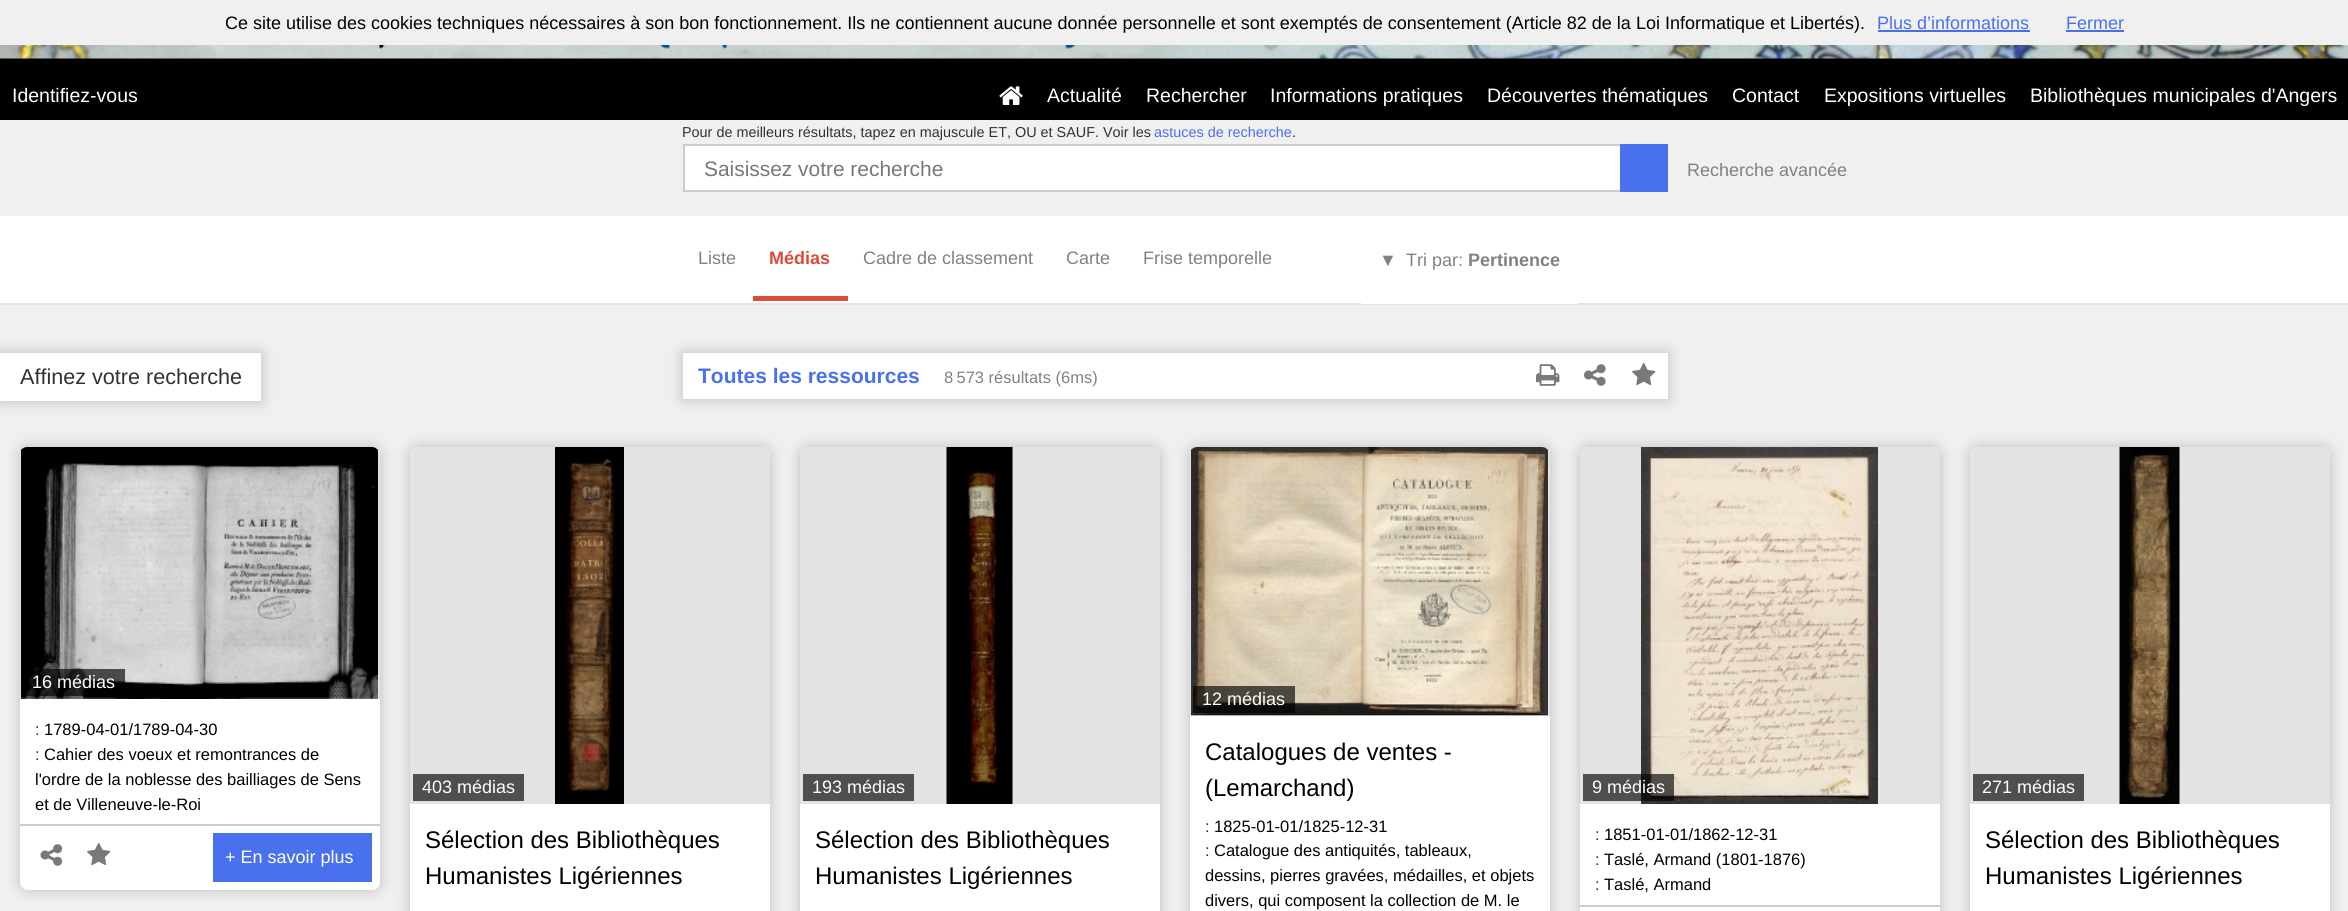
#include <cairo/cairo.h>
#include <math.h>
#include <stddef.h>


static void rounded_rect(cairo_t *cr, double x, double y, double w, double h, double r) {
  cairo_new_sub_path(cr);
  cairo_arc(cr, x + w - r, y + h - r, r, 0, M_PI / 2);
  cairo_arc(cr, x + r, y + h - r, r, M_PI / 2, M_PI);
  cairo_arc(cr, x + r, y + r, r, M_PI, 1.5 * M_PI);
  cairo_arc(cr, x + w - r, y + r, r, 1.5 * M_PI, 2 * M_PI);
  cairo_close_path(cr);
}

static void draw_shadow(cairo_t *cr, double x, double y, double w, double h, double r, double blur, double alpha) {
  cairo_push_group_with_content(cr, CAIRO_CONTENT_ALPHA);
  cairo_set_operator(cr, CAIRO_OPERATOR_SOURCE);
  for (int i = 15; i >= -15 && fmin(w, h) + blur * i / 3 > 0; i -= 2) {
    double e = blur * i / 6;
    cairo_set_source_rgba(cr, 0, 0, 0, alpha * erfc((i - 1) / 8.5) / 2);
    rounded_rect(cr, x - e, y - e, w + 2 * e, h + 2 * e, fmax(0, fmin(r + e + blur * .6, fmin(w, h) / 2 + e)));
    cairo_fill(cr);
  }
  cairo_pattern_t *soft = cairo_pop_group(cr);
  cairo_mask(cr, soft);
  cairo_pattern_destroy(soft);
}

static void draw_image(cairo_t *cr, const char *path, double x, double y, double w, double h) {
  cairo_surface_t *image = cairo_image_surface_create_from_png(path);
  cairo_save(cr);
  cairo_set_source_surface(cr, image, x, y);
  cairo_rectangle(cr, x, y, w, h);
  cairo_fill(cr);
  cairo_restore(cr);
  cairo_surface_destroy(image);
}

static void draw(cairo_t *cr) {
  cairo_set_source_rgb(cr, 240 / 255.0, 240 / 255.0, 240 / 255.0);
  cairo_paint(cr);
  cairo_set_source_rgb(cr, 73 / 255.0, 112 / 255.0, 236 / 255.0);
  cairo_rectangle(cr, 1878, 30, 152, 2);
  cairo_fill(cr);
  cairo_rectangle(cr, 2066, 30, 58, 2);
  cairo_fill(cr);
  cairo_set_source_rgb(cr, 0, 0, 0);
  cairo_rectangle(cr, 0, 58, 2348, 62);
  cairo_fill(cr);
  draw_image(cr, "images/1.png", 0, 45, 2348, 14);
  draw_image(cr, "images/2.png", 999, 86, 24, 19);
  cairo_set_source_rgb(cr, 1, 1, 1);
  cairo_rectangle(cr, 685, 146, 935, 44);
  cairo_fill(cr);
  cairo_rectangle(cr, 684, 145, 983, 46);
  cairo_set_source_rgb(cr, 204 / 255.0, 204 / 255.0, 204 / 255.0);
  cairo_stroke(cr);
  cairo_set_source_rgb(cr, 74 / 255.0, 113 / 255.0, 237 / 255.0);
  cairo_rectangle(cr, 1620, 144, 48, 48);
  cairo_fill(cr);
  cairo_set_source_rgb(cr, 1, 1, 1);
  cairo_rectangle(cr, 0, 216, 2348, 87);
  cairo_fill(cr);
  cairo_set_source_rgb(cr, 227 / 255.0, 227 / 255.0, 227 / 255.0);
  cairo_rectangle(cr, 0, 303, 2348, 2);
  cairo_fill(cr);
  cairo_set_source_rgb(cr, 221 / 255.0, 75 / 255.0, 57 / 255.0);
  cairo_rectangle(cr, 753, 296, 95, 5);
  cairo_fill(cr);
  cairo_set_source_rgb(cr, 1, 1, 1);
  cairo_rectangle(cr, 1361, 303, 217, 1);
  cairo_fill(cr);
  cairo_set_source_rgb(cr, 187 / 255.0, 187 / 255.0, 187 / 255.0);
  draw_shadow(cr, 0, 353, 261, 48, 0, 7, 1);
  cairo_set_source_rgb(cr, 1, 1, 1);
  cairo_rectangle(cr, 0, 353, 261, 48);
  cairo_fill(cr);
  cairo_set_source_rgb(cr, 187 / 255.0, 187 / 255.0, 187 / 255.0);
  draw_shadow(cr, 683, 353, 985, 46, 0, 7, 1);
  cairo_set_source_rgb(cr, 1, 1, 1);
  cairo_rectangle(cr, 683, 353, 985, 46);
  cairo_fill(cr);
  draw_image(cr, "images/3.png", 1536, 364, 24, 22);
  draw_image(cr, "images/4.png", 1584, 364, 22, 22);
  draw_image(cr, "images/5.png", 1632, 362, 24, 24);
  cairo_set_source_rgb(cr, 187 / 255.0, 187 / 255.0, 187 / 255.0);
  draw_shadow(cr, 20, 447, 360, 443, 8, 7, 1);
  cairo_set_source_rgb(cr, 1, 1, 1);
  rounded_rect(cr, 20, 447, 360, 443, 8);
  cairo_fill(cr);
  cairo_set_source_rgb(cr, 227 / 255.0, 227 / 255.0, 227 / 255.0);
  cairo_new_path(cr);
  cairo_move_to(cr, 28, 447);
  cairo_line_to(cr, 372, 447);
  cairo_curve_to(cr, 376.5, 447, 380, 450.5, 380, 455);
  cairo_line_to(cr, 380, 699);
  cairo_line_to(cr, 20, 699);
  cairo_line_to(cr, 20, 455);
  cairo_curve_to(cr, 20, 450.5, 23.5, 447, 28, 447);
  cairo_close_path(cr);
  cairo_fill(cr);
  draw_image(cr, "images/6.png", 21, 447, 357, 252);
  cairo_set_source_rgba(cr, 0, 0, 0, 0.65);
  cairo_rectangle(cr, 26, 669, 99, 27);
  cairo_fill(cr);
  cairo_set_source_rgb(cr, 204 / 255.0, 204 / 255.0, 204 / 255.0);
  cairo_rectangle(cr, 20, 824, 360, 2);
  cairo_fill(cr);
  draw_image(cr, "images/7.png", 40, 844, 23, 22);
  draw_image(cr, "images/5.png", 87, 842, 24, 24);
  cairo_set_source_rgb(cr, 74 / 255.0, 113 / 255.0, 237 / 255.0);
  cairo_rectangle(cr, 213, 833, 159, 49);
  cairo_fill(cr);
  cairo_set_source_rgb(cr, 187 / 255.0, 187 / 255.0, 187 / 255.0);
  draw_shadow(cr, 410, 447, 360, 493, 8, 7, 1);
  cairo_set_source_rgb(cr, 1, 1, 1);
  cairo_new_path(cr);
  cairo_move_to(cr, 418, 447);
  cairo_line_to(cr, 762, 447);
  cairo_curve_to(cr, 766.5, 447, 770, 450.5, 770, 455);
  cairo_line_to(cr, 770, 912);
  cairo_line_to(cr, 410, 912);
  cairo_line_to(cr, 410, 455);
  cairo_curve_to(cr, 410, 450.5, 413.5, 447, 418, 447);
  cairo_close_path(cr);
  cairo_fill(cr);
  cairo_set_source_rgb(cr, 227 / 255.0, 227 / 255.0, 227 / 255.0);
  cairo_new_path(cr);
  cairo_move_to(cr, 418, 447);
  cairo_line_to(cr, 762, 447);
  cairo_curve_to(cr, 766.5, 447, 770, 450.5, 770, 455);
  cairo_line_to(cr, 770, 804);
  cairo_line_to(cr, 410, 804);
  cairo_line_to(cr, 410, 455);
  cairo_curve_to(cr, 410, 450.5, 413.5, 447, 418, 447);
  cairo_close_path(cr);
  cairo_fill(cr);
  cairo_set_source_rgb(cr, 79 / 255.0, 79 / 255.0, 79 / 255.0);
  cairo_rectangle(cr, 413, 774, 111, 27);
  cairo_fill(cr);
  draw_image(cr, "images/8.png", 555, 447, 69, 357);
  cairo_set_source_rgb(cr, 187 / 255.0, 187 / 255.0, 187 / 255.0);
  draw_shadow(cr, 800, 447, 360, 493, 8, 7, 1);
  cairo_set_source_rgb(cr, 1, 1, 1);
  cairo_new_path(cr);
  cairo_move_to(cr, 808, 447);
  cairo_line_to(cr, 1152, 447);
  cairo_curve_to(cr, 1156.5, 447, 1160, 450.5, 1160, 455);
  cairo_line_to(cr, 1160, 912);
  cairo_line_to(cr, 800, 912);
  cairo_line_to(cr, 800, 455);
  cairo_curve_to(cr, 800, 450.5, 803.5, 447, 808, 447);
  cairo_close_path(cr);
  cairo_fill(cr);
  cairo_set_source_rgb(cr, 227 / 255.0, 227 / 255.0, 227 / 255.0);
  cairo_new_path(cr);
  cairo_move_to(cr, 808, 447);
  cairo_line_to(cr, 1152, 447);
  cairo_curve_to(cr, 1156.5, 447, 1160, 450.5, 1160, 455);
  cairo_line_to(cr, 1160, 804);
  cairo_line_to(cr, 800, 804);
  cairo_line_to(cr, 800, 455);
  cairo_curve_to(cr, 800, 450.5, 803.5, 447, 808, 447);
  cairo_close_path(cr);
  cairo_fill(cr);
  cairo_set_source_rgb(cr, 79 / 255.0, 79 / 255.0, 79 / 255.0);
  cairo_rectangle(cr, 803, 774, 111, 27);
  cairo_fill(cr);
  draw_image(cr, "images/9.png", 946, 447, 67, 357);
  cairo_set_source_rgb(cr, 187 / 255.0, 187 / 255.0, 187 / 255.0);
  draw_shadow(cr, 1190, 447, 360, 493, 8, 7, 1);
  cairo_set_source_rgb(cr, 1, 1, 1);
  cairo_new_path(cr);
  cairo_move_to(cr, 1198, 447);
  cairo_line_to(cr, 1542, 447);
  cairo_curve_to(cr, 1546.5, 447, 1550, 450.5, 1550, 455);
  cairo_line_to(cr, 1550, 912);
  cairo_line_to(cr, 1190, 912);
  cairo_line_to(cr, 1190, 455);
  cairo_curve_to(cr, 1190, 450.5, 1193.5, 447, 1198, 447);
  cairo_close_path(cr);
  cairo_fill(cr);
  cairo_set_source_rgb(cr, 227 / 255.0, 227 / 255.0, 227 / 255.0);
  cairo_new_path(cr);
  cairo_move_to(cr, 1198, 447);
  cairo_line_to(cr, 1542, 447);
  cairo_curve_to(cr, 1546.5, 447, 1550, 450.5, 1550, 455);
  cairo_line_to(cr, 1550, 716);
  cairo_line_to(cr, 1190, 716);
  cairo_line_to(cr, 1190, 455);
  cairo_curve_to(cr, 1190, 450.5, 1193.5, 447, 1198, 447);
  cairo_close_path(cr);
  cairo_fill(cr);
  draw_image(cr, "images/10.png", 1191, 447, 357, 269);
  cairo_set_source_rgba(cr, 0, 0, 0, 0.65);
  cairo_rectangle(cr, 1193, 686, 102, 27);
  cairo_fill(cr);
  cairo_set_source_rgb(cr, 187 / 255.0, 187 / 255.0, 187 / 255.0);
  draw_shadow(cr, 1580, 447, 360, 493, 8, 7, 1);
  cairo_set_source_rgb(cr, 1, 1, 1);
  cairo_new_path(cr);
  cairo_move_to(cr, 1588, 447);
  cairo_line_to(cr, 1932, 447);
  cairo_curve_to(cr, 1936.5, 447, 1940, 450.5, 1940, 455);
  cairo_line_to(cr, 1940, 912);
  cairo_line_to(cr, 1580, 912);
  cairo_line_to(cr, 1580, 455);
  cairo_curve_to(cr, 1580, 450.5, 1583.5, 447, 1588, 447);
  cairo_close_path(cr);
  cairo_fill(cr);
  cairo_set_source_rgb(cr, 227 / 255.0, 227 / 255.0, 227 / 255.0);
  cairo_new_path(cr);
  cairo_move_to(cr, 1588, 447);
  cairo_line_to(cr, 1932, 447);
  cairo_curve_to(cr, 1936.5, 447, 1940, 450.5, 1940, 455);
  cairo_line_to(cr, 1940, 804);
  cairo_line_to(cr, 1580, 804);
  cairo_line_to(cr, 1580, 455);
  cairo_curve_to(cr, 1580, 450.5, 1583.5, 447, 1588, 447);
  cairo_close_path(cr);
  cairo_fill(cr);
  draw_image(cr, "images/11.png", 1641, 447, 237, 357);
  cairo_set_source_rgba(cr, 0, 0, 0, 0.65);
  cairo_rectangle(cr, 1583, 774, 91, 27);
  cairo_fill(cr);
  cairo_set_source_rgb(cr, 204 / 255.0, 204 / 255.0, 204 / 255.0);
  cairo_rectangle(cr, 1580, 905, 360, 2);
  cairo_fill(cr);
  cairo_set_source_rgb(cr, 187 / 255.0, 187 / 255.0, 187 / 255.0);
  draw_shadow(cr, 1970, 447, 360, 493, 8, 7, 1);
  cairo_set_source_rgb(cr, 1, 1, 1);
  cairo_new_path(cr);
  cairo_move_to(cr, 1978, 447);
  cairo_line_to(cr, 2322, 447);
  cairo_curve_to(cr, 2326.5, 447, 2330, 450.5, 2330, 455);
  cairo_line_to(cr, 2330, 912);
  cairo_line_to(cr, 1970, 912);
  cairo_line_to(cr, 1970, 455);
  cairo_curve_to(cr, 1970, 450.5, 1973.5, 447, 1978, 447);
  cairo_close_path(cr);
  cairo_fill(cr);
  cairo_set_source_rgb(cr, 227 / 255.0, 227 / 255.0, 227 / 255.0);
  cairo_new_path(cr);
  cairo_move_to(cr, 1978, 447);
  cairo_line_to(cr, 2322, 447);
  cairo_curve_to(cr, 2326.5, 447, 2330, 450.5, 2330, 455);
  cairo_line_to(cr, 2330, 804);
  cairo_line_to(cr, 1970, 804);
  cairo_line_to(cr, 1970, 455);
  cairo_curve_to(cr, 1970, 450.5, 1973.5, 447, 1978, 447);
  cairo_close_path(cr);
  cairo_fill(cr);
  cairo_set_source_rgb(cr, 79 / 255.0, 79 / 255.0, 79 / 255.0);
  cairo_rectangle(cr, 1973, 774, 111, 27);
  cairo_fill(cr);
  draw_image(cr, "images/12.png", 2119, 447, 61, 357);
  cairo_select_font_face(cr, "Liberation Sans", CAIRO_FONT_SLANT_NORMAL, CAIRO_FONT_WEIGHT_NORMAL);
  cairo_set_font_size(cr, 18);
  cairo_set_source_rgb(cr, 0, 0, 0);
  cairo_move_to(cr, 225, 29);
  cairo_show_text(cr, "Ce site utilise des cookies techniques nécessaires à son bon fonctionnement. Ils ne contiennent aucune donnée personnelle et sont exemptés de consentement (Article 82 de la Loi Informatique et Libertés).");
  cairo_set_source_rgb(cr, 74 / 255.0, 113 / 255.0, 237 / 255.0);
  cairo_move_to(cr, 1877, 29);
  cairo_show_text(cr, "Plus d’informations");
  cairo_move_to(cr, 2066, 29);
  cairo_show_text(cr, "Fermer");
  cairo_set_font_size(cr, 19.5);
  cairo_set_source_rgb(cr, 1, 1, 1);
  cairo_move_to(cr, 12, 102);
  cairo_show_text(cr, "Identifiez-vous");
  cairo_move_to(cr, 1047, 102);
  cairo_show_text(cr, "Actualité");
  cairo_move_to(cr, 1146, 102);
  cairo_show_text(cr, "Rechercher");
  cairo_move_to(cr, 1270, 102);
  cairo_show_text(cr, "Informations pratiques");
  cairo_move_to(cr, 1487, 102);
  cairo_show_text(cr, "Découvertes thématiques");
  cairo_move_to(cr, 1732, 102);
  cairo_show_text(cr, "Contact");
  cairo_move_to(cr, 1824, 102);
  cairo_show_text(cr, "Expositions virtuelles");
  cairo_move_to(cr, 2030, 102);
  cairo_show_text(cr, "Bibliothèques municipales d'Angers");
  cairo_set_font_size(cr, 14.4);
  cairo_set_source_rgb(cr, 50 / 255.0, 50 / 255.0, 50 / 255.0);
  cairo_move_to(cr, 682, 137);
  cairo_show_text(cr, "Pour de meilleurs résultats, tapez en majuscule ET, OU et SAUF. Voir les");
  cairo_set_source_rgb(cr, 74 / 255.0, 113 / 255.0, 237 / 255.0);
  cairo_move_to(cr, 1154, 137);
  cairo_show_text(cr, "astuces de recherche");
  cairo_set_source_rgb(cr, 50 / 255.0, 50 / 255.0, 50 / 255.0);
  cairo_move_to(cr, 1292, 137);
  cairo_show_text(cr, ".");
  cairo_set_font_size(cr, 20.9);
  cairo_set_source_rgb(cr, 119 / 255.0, 119 / 255.0, 119 / 255.0);
  cairo_move_to(cr, 704, 176);
  cairo_show_text(cr, "Saisissez votre recherche");
  cairo_set_font_size(cr, 18);
  cairo_set_source_rgb(cr, 129 / 255.0, 129 / 255.0, 129 / 255.0);
  cairo_move_to(cr, 1687, 176);
  cairo_show_text(cr, "Recherche avancée");
  cairo_move_to(cr, 698, 264);
  cairo_show_text(cr, "Liste");
  cairo_select_font_face(cr, "Liberation Sans", CAIRO_FONT_SLANT_NORMAL, CAIRO_FONT_WEIGHT_BOLD);
  cairo_set_source_rgb(cr, 221 / 255.0, 75 / 255.0, 57 / 255.0);
  cairo_move_to(cr, 769, 264);
  cairo_show_text(cr, "Médias");
  cairo_select_font_face(cr, "Liberation Sans", CAIRO_FONT_SLANT_NORMAL, CAIRO_FONT_WEIGHT_NORMAL);
  cairo_set_source_rgb(cr, 129 / 255.0, 129 / 255.0, 129 / 255.0);
  cairo_move_to(cr, 863, 264);
  cairo_show_text(cr, "Cadre de classement");
  cairo_move_to(cr, 1066, 264);
  cairo_show_text(cr, "Carte");
  cairo_move_to(cr, 1143, 264);
  cairo_show_text(cr, "Frise temporelle");
  cairo_move_to(cr, 1379, 266);
  cairo_show_text(cr, "▼");
  cairo_move_to(cr, 1406, 266);
  cairo_show_text(cr, "Tri par:");
  cairo_select_font_face(cr, "Liberation Sans", CAIRO_FONT_SLANT_NORMAL, CAIRO_FONT_WEIGHT_BOLD);
  cairo_move_to(cr, 1468, 266);
  cairo_show_text(cr, "Pertinence");
  cairo_select_font_face(cr, "Liberation Sans", CAIRO_FONT_SLANT_NORMAL, CAIRO_FONT_WEIGHT_NORMAL);
  cairo_set_font_size(cr, 21.6);
  cairo_set_source_rgb(cr, 50 / 255.0, 50 / 255.0, 50 / 255.0);
  cairo_move_to(cr, 20, 384);
  cairo_show_text(cr, "Affinez votre recherche");
  cairo_select_font_face(cr, "Liberation Sans", CAIRO_FONT_SLANT_NORMAL, CAIRO_FONT_WEIGHT_BOLD);
  cairo_set_font_size(cr, 21);
  cairo_set_source_rgb(cr, 74 / 255.0, 113 / 255.0, 237 / 255.0);
  cairo_move_to(cr, 698, 383);
  cairo_show_text(cr, "Toutes les ressources");
  cairo_select_font_face(cr, "Liberation Sans", CAIRO_FONT_SLANT_NORMAL, CAIRO_FONT_WEIGHT_NORMAL);
  cairo_set_font_size(cr, 16.5);
  cairo_set_source_rgb(cr, 129 / 255.0, 129 / 255.0, 129 / 255.0);
  cairo_move_to(cr, 944, 383);
  cairo_show_text(cr, "8 573 résultats (6ms)");
  cairo_set_font_size(cr, 18);
  cairo_set_source_rgb(cr, 1, 1, 1);
  cairo_move_to(cr, 32, 688);
  cairo_show_text(cr, "16 médias");
  cairo_set_font_size(cr, 16.5);
  cairo_set_source_rgb(cr, 50 / 255.0, 50 / 255.0, 50 / 255.0);
  cairo_move_to(cr, 35, 735);
  cairo_show_text(cr, ":");
  cairo_set_source_rgb(cr, 0, 0, 0);
  cairo_move_to(cr, 44, 735);
  cairo_show_text(cr, "1789-04-01/1789-04-30");
  cairo_set_source_rgb(cr, 50 / 255.0, 50 / 255.0, 50 / 255.0);
  cairo_move_to(cr, 35, 760);
  cairo_show_text(cr, ":");
  cairo_set_source_rgb(cr, 0, 0, 0);
  cairo_move_to(cr, 44, 760);
  cairo_show_text(cr, "Cahier des voeux et remontrances de");
  cairo_move_to(cr, 35, 785);
  cairo_show_text(cr, "l'ordre de la noblesse des bailliages de Sens");
  cairo_move_to(cr, 35, 810);
  cairo_show_text(cr, "et de Villeneuve-le-Roi");
  cairo_set_font_size(cr, 18);
  cairo_set_source_rgb(cr, 1, 1, 1);
  cairo_move_to(cr, 225, 863);
  cairo_show_text(cr, "+ En savoir plus");
  cairo_move_to(cr, 422, 793);
  cairo_show_text(cr, "403 médias");
  cairo_set_font_size(cr, 24);
  cairo_set_source_rgb(cr, 0, 0, 0);
  cairo_move_to(cr, 425, 848);
  cairo_show_text(cr, "Sélection des Bibliothèques");
  cairo_move_to(cr, 425, 884);
  cairo_show_text(cr, "Humanistes Ligériennes");
  cairo_set_font_size(cr, 18);
  cairo_set_source_rgb(cr, 1, 1, 1);
  cairo_move_to(cr, 812, 793);
  cairo_show_text(cr, "193 médias");
  cairo_set_font_size(cr, 24);
  cairo_set_source_rgb(cr, 0, 0, 0);
  cairo_move_to(cr, 815, 848);
  cairo_show_text(cr, "Sélection des Bibliothèques");
  cairo_move_to(cr, 815, 884);
  cairo_show_text(cr, "Humanistes Ligériennes");
  cairo_set_font_size(cr, 18);
  cairo_set_source_rgb(cr, 1, 1, 1);
  cairo_move_to(cr, 1202, 705);
  cairo_show_text(cr, "12 médias");
  cairo_set_font_size(cr, 24);
  cairo_set_source_rgb(cr, 0, 0, 0);
  cairo_move_to(cr, 1205, 760);
  cairo_show_text(cr, "Catalogues de ventes -");
  cairo_move_to(cr, 1205, 796);
  cairo_show_text(cr, "(Lemarchand)");
  cairo_set_font_size(cr, 16.5);
  cairo_set_source_rgb(cr, 50 / 255.0, 50 / 255.0, 50 / 255.0);
  cairo_move_to(cr, 1205, 832);
  cairo_show_text(cr, ":");
  cairo_set_source_rgb(cr, 0, 0, 0);
  cairo_move_to(cr, 1214, 832);
  cairo_show_text(cr, "1825-01-01/1825-12-31");
  cairo_set_source_rgb(cr, 50 / 255.0, 50 / 255.0, 50 / 255.0);
  cairo_move_to(cr, 1205, 856);
  cairo_show_text(cr, ":");
  cairo_set_source_rgb(cr, 0, 0, 0);
  cairo_move_to(cr, 1214, 856);
  cairo_show_text(cr, "Catalogue des antiquités, tableaux,");
  cairo_move_to(cr, 1205, 881);
  cairo_show_text(cr, "dessins, pierres gravées, médailles, et objets");
  cairo_move_to(cr, 1205, 906);
  cairo_show_text(cr, "divers, qui composent la collection de M. le");
  cairo_set_font_size(cr, 18);
  cairo_set_source_rgb(cr, 1, 1, 1);
  cairo_move_to(cr, 1592, 793);
  cairo_show_text(cr, "9 médias");
  cairo_set_font_size(cr, 16.5);
  cairo_set_source_rgb(cr, 50 / 255.0, 50 / 255.0, 50 / 255.0);
  cairo_move_to(cr, 1595, 840);
  cairo_show_text(cr, ":");
  cairo_set_source_rgb(cr, 0, 0, 0);
  cairo_move_to(cr, 1604, 840);
  cairo_show_text(cr, "1851-01-01/1862-12-31");
  cairo_set_source_rgb(cr, 50 / 255.0, 50 / 255.0, 50 / 255.0);
  cairo_move_to(cr, 1595, 865);
  cairo_show_text(cr, ":");
  cairo_set_source_rgb(cr, 0, 0, 0);
  cairo_move_to(cr, 1604, 865);
  cairo_show_text(cr, "Taslé, Armand (1801-1876)");
  cairo_set_source_rgb(cr, 50 / 255.0, 50 / 255.0, 50 / 255.0);
  cairo_move_to(cr, 1595, 890);
  cairo_show_text(cr, ":");
  cairo_set_source_rgb(cr, 0, 0, 0);
  cairo_move_to(cr, 1604, 890);
  cairo_show_text(cr, "Taslé, Armand");
  cairo_set_font_size(cr, 18);
  cairo_set_source_rgb(cr, 1, 1, 1);
  cairo_move_to(cr, 1982, 793);
  cairo_show_text(cr, "271 médias");
  cairo_set_font_size(cr, 24);
  cairo_set_source_rgb(cr, 0, 0, 0);
  cairo_move_to(cr, 1985, 848);
  cairo_show_text(cr, "Sélection des Bibliothèques");
  cairo_move_to(cr, 1985, 884);
  cairo_show_text(cr, "Humanistes Ligériennes");
}

int main(void) {
  cairo_surface_t *surface = cairo_image_surface_create(CAIRO_FORMAT_RGB24, 2348, 911);
  cairo_t *cr = cairo_create(surface);
  cairo_font_options_t *options = cairo_font_options_create();
  cairo_font_options_set_hint_metrics(options, CAIRO_HINT_METRICS_OFF);
  cairo_font_options_set_hint_style(options, CAIRO_HINT_STYLE_NONE);
  cairo_set_font_options(cr, options);
  cairo_set_miter_limit(cr, 4);
  draw(cr);
  cairo_surface_write_to_png(surface, "out.png");
  cairo_font_options_destroy(options);
  cairo_destroy(cr);
  cairo_surface_destroy(surface);
  return 0;
}
